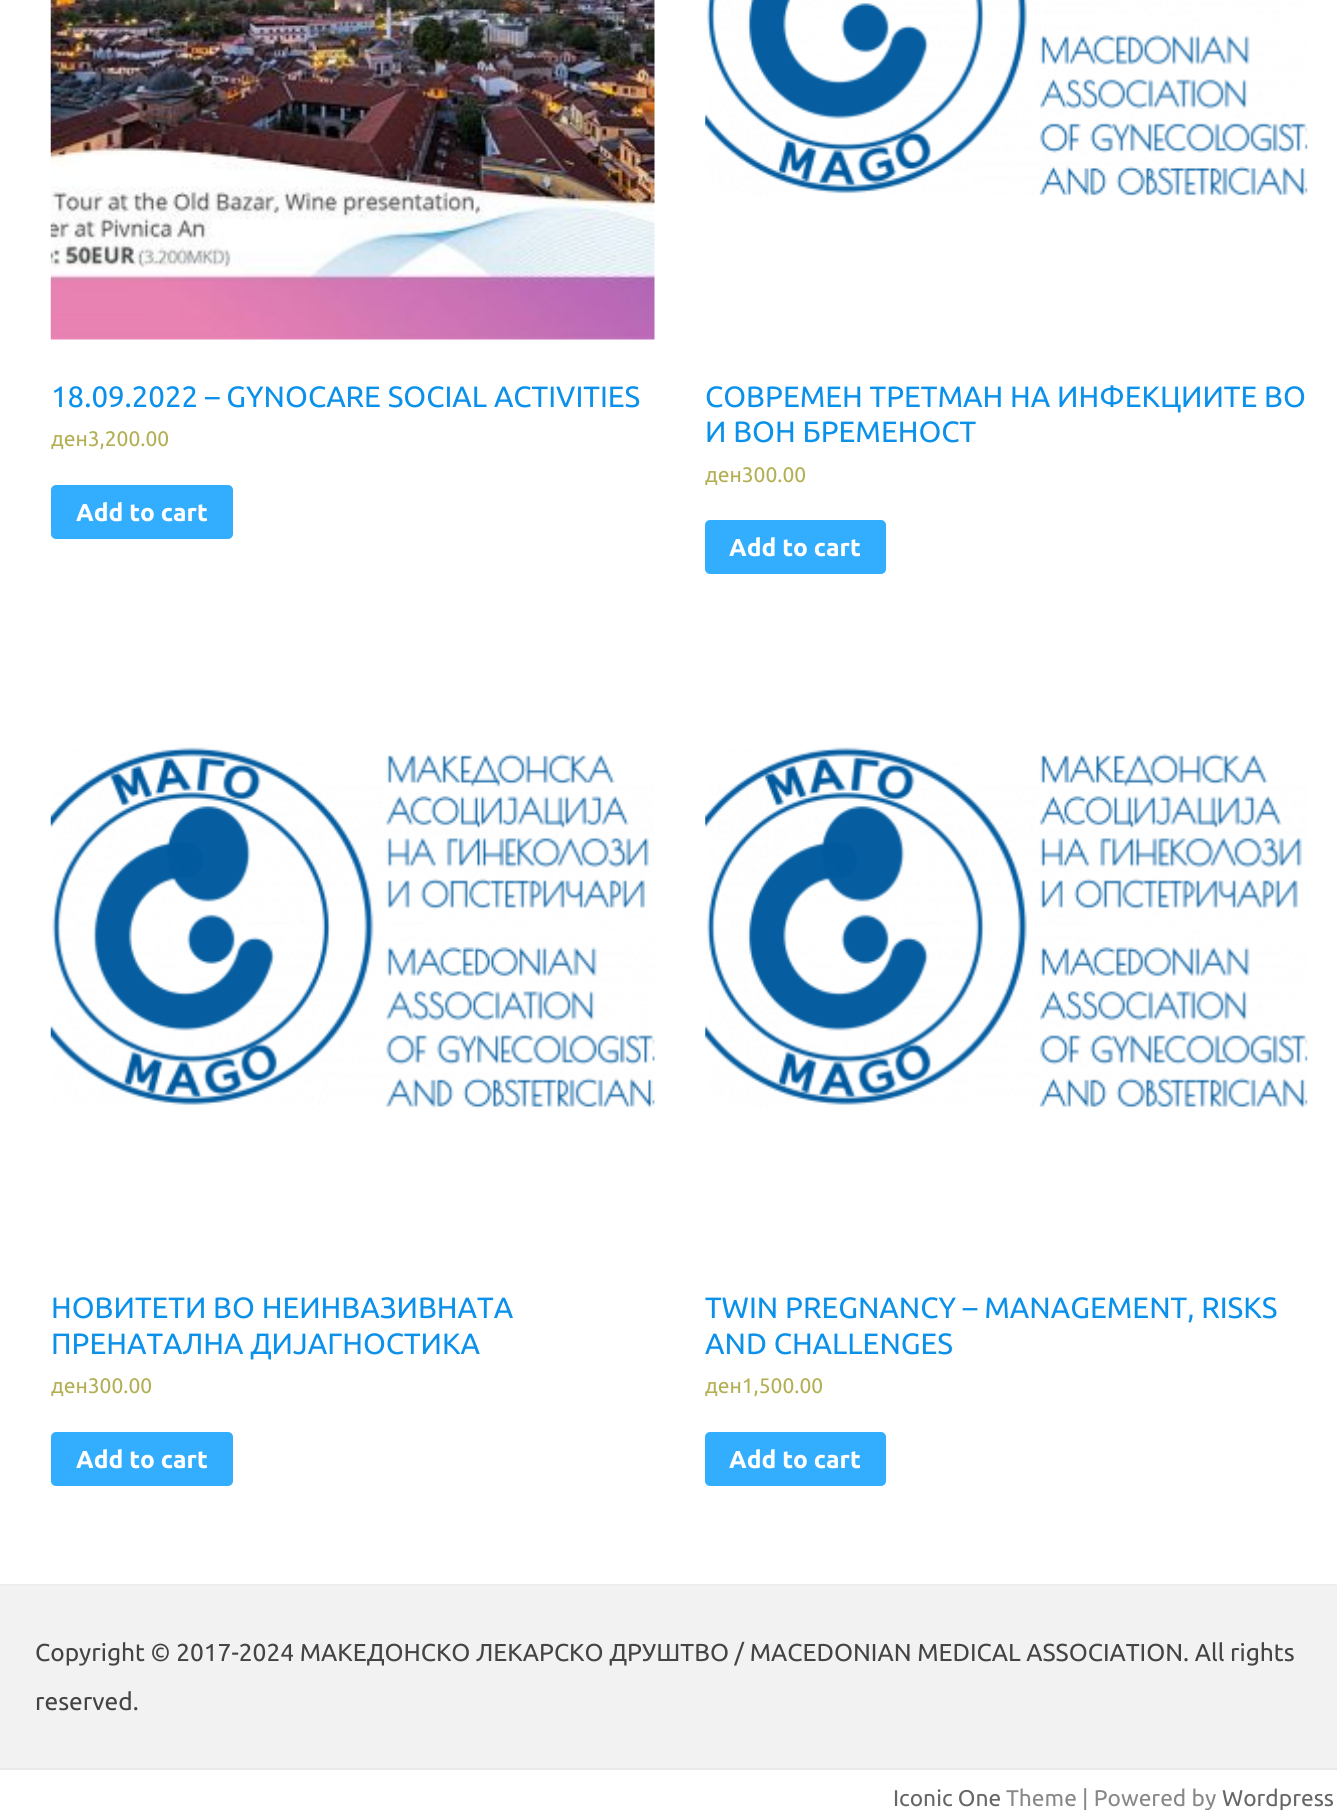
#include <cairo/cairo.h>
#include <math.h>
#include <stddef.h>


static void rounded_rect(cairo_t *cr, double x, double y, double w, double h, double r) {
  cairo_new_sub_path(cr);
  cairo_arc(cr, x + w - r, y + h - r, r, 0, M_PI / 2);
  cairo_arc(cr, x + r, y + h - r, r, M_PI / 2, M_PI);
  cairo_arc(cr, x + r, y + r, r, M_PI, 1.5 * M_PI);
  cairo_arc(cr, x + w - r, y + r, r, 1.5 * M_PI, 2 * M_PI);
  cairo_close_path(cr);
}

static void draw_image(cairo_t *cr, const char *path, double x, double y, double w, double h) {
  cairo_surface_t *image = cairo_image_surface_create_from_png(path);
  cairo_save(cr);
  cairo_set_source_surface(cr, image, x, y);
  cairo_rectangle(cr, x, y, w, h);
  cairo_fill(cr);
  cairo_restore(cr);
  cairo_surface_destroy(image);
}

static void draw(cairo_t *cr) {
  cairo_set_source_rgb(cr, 1, 1, 1);
  cairo_paint(cr);
  draw_image(cr, "images/1.png", 50, 0, 605, 340);
  cairo_set_source_rgb(cr, 51 / 255.0, 174 / 255.0, 1);
  rounded_rect(cr, 51, 485, 182, 54, 5);
  cairo_fill(cr);
  draw_image(cr, "images/2.png", 705, 0, 603, 197);
  rounded_rect(cr, 705, 520, 181, 54, 5);
  cairo_fill(cr);
  draw_image(cr, "images/3.png", 50, 747, 605, 362);
  rounded_rect(cr, 51, 1432, 182, 54, 5);
  cairo_fill(cr);
  draw_image(cr, "images/4.png", 705, 747, 603, 362);
  rounded_rect(cr, 705, 1432, 181, 54, 5);
  cairo_fill(cr);
  cairo_set_source_rgb(cr, 242 / 255.0, 242 / 255.0, 242 / 255.0);
  cairo_rectangle(cr, 0, 1586, 1337, 182);
  cairo_fill(cr);
  cairo_set_source_rgb(cr, 237 / 255.0, 237 / 255.0, 237 / 255.0);
  cairo_rectangle(cr, 0, 1584, 1337, 2);
  cairo_fill(cr);
  cairo_set_source_rgb(cr, 233 / 255.0, 233 / 255.0, 233 / 255.0);
  cairo_rectangle(cr, 0, 1768, 1337, 2);
  cairo_fill(cr);
  cairo_select_font_face(cr, "Ubuntu", CAIRO_FONT_SLANT_NORMAL, CAIRO_FONT_WEIGHT_NORMAL);
  cairo_set_font_size(cr, 29.4);
  cairo_set_source_rgb(cr, 11 / 255.0, 145 / 255.0, 234 / 255.0);
  cairo_move_to(cr, 51, 407);
  cairo_show_text(cr, "18.09.2022 – GYNOCARE SOCIAL ACTIVITIES");
  cairo_set_font_size(cr, 21);
  cairo_set_source_rgb(cr, 179 / 255.0, 175 / 255.0, 84 / 255.0);
  cairo_move_to(cr, 51, 446);
  cairo_show_text(cr, "ден3,200.00");
  cairo_select_font_face(cr, "Ubuntu", CAIRO_FONT_SLANT_NORMAL, CAIRO_FONT_WEIGHT_BOLD);
  cairo_set_font_size(cr, 24.5);
  cairo_set_source_rgb(cr, 1, 1, 1);
  cairo_move_to(cr, 76, 521);
  cairo_show_text(cr, "Add to cart");
  cairo_select_font_face(cr, "Ubuntu", CAIRO_FONT_SLANT_NORMAL, CAIRO_FONT_WEIGHT_NORMAL);
  cairo_set_font_size(cr, 29.4);
  cairo_set_source_rgb(cr, 11 / 255.0, 145 / 255.0, 234 / 255.0);
  cairo_move_to(cr, 705, 407);
  cairo_show_text(cr, "СОВРЕМЕН ТРЕТМАН НА ИНФЕКЦИИТЕ ВО");
  cairo_move_to(cr, 705, 442);
  cairo_show_text(cr, "И ВОН БРЕМЕНОСТ");
  cairo_set_font_size(cr, 21);
  cairo_set_source_rgb(cr, 179 / 255.0, 175 / 255.0, 84 / 255.0);
  cairo_move_to(cr, 705, 482);
  cairo_show_text(cr, "ден300.00");
  cairo_select_font_face(cr, "Ubuntu", CAIRO_FONT_SLANT_NORMAL, CAIRO_FONT_WEIGHT_BOLD);
  cairo_set_font_size(cr, 24.5);
  cairo_set_source_rgb(cr, 1, 1, 1);
  cairo_move_to(cr, 729, 556);
  cairo_show_text(cr, "Add to cart");
  cairo_select_font_face(cr, "Ubuntu", CAIRO_FONT_SLANT_NORMAL, CAIRO_FONT_WEIGHT_NORMAL);
  cairo_set_font_size(cr, 29.4);
  cairo_set_source_rgb(cr, 11 / 255.0, 145 / 255.0, 234 / 255.0);
  cairo_move_to(cr, 51, 1318);
  cairo_show_text(cr, "НОВИТЕТИ ВО НЕИНВАЗИВНАТА");
  cairo_move_to(cr, 51, 1354);
  cairo_show_text(cr, "ПРЕНАТАЛНА ДИЈАГНОСТИКА");
  cairo_set_font_size(cr, 21);
  cairo_set_source_rgb(cr, 179 / 255.0, 175 / 255.0, 84 / 255.0);
  cairo_move_to(cr, 51, 1393);
  cairo_show_text(cr, "ден300.00");
  cairo_select_font_face(cr, "Ubuntu", CAIRO_FONT_SLANT_NORMAL, CAIRO_FONT_WEIGHT_BOLD);
  cairo_set_font_size(cr, 24.5);
  cairo_set_source_rgb(cr, 1, 1, 1);
  cairo_move_to(cr, 76, 1468);
  cairo_show_text(cr, "Add to cart");
  cairo_select_font_face(cr, "Ubuntu", CAIRO_FONT_SLANT_NORMAL, CAIRO_FONT_WEIGHT_NORMAL);
  cairo_set_font_size(cr, 29.4);
  cairo_set_source_rgb(cr, 11 / 255.0, 145 / 255.0, 234 / 255.0);
  cairo_move_to(cr, 705, 1318);
  cairo_show_text(cr, "TWIN PREGNANCY – MANAGEMENT, RISKS");
  cairo_move_to(cr, 705, 1354);
  cairo_show_text(cr, "AND CHALLENGES");
  cairo_set_font_size(cr, 21);
  cairo_set_source_rgb(cr, 179 / 255.0, 175 / 255.0, 84 / 255.0);
  cairo_move_to(cr, 705, 1393);
  cairo_show_text(cr, "ден1,500.00");
  cairo_select_font_face(cr, "Ubuntu", CAIRO_FONT_SLANT_NORMAL, CAIRO_FONT_WEIGHT_BOLD);
  cairo_set_font_size(cr, 24.5);
  cairo_set_source_rgb(cr, 1, 1, 1);
  cairo_move_to(cr, 729, 1468);
  cairo_show_text(cr, "Add to cart");
  cairo_select_font_face(cr, "Ubuntu", CAIRO_FONT_SLANT_NORMAL, CAIRO_FONT_WEIGHT_NORMAL);
  cairo_set_source_rgb(cr, 68 / 255.0, 68 / 255.0, 68 / 255.0);
  cairo_move_to(cr, 35, 1661);
  cairo_show_text(cr, "Copyright © 2017-2024 МАКЕДОНСКО ЛЕКАРСКО ДРУШТВО / MACEDONIAN MEDICAL ASSOCIATION. All rights");
  cairo_move_to(cr, 35, 1710);
  cairo_show_text(cr, "reserved.");
  cairo_set_font_size(cr, 22.75);
  cairo_set_source_rgb(cr, 102 / 255.0, 102 / 255.0, 102 / 255.0);
  cairo_move_to(cr, 893, 1806);
  cairo_show_text(cr, "Iconic One");
  cairo_set_source_rgb(cr, 136 / 255.0, 136 / 255.0, 136 / 255.0);
  cairo_move_to(cr, 1006, 1806);
  cairo_show_text(cr, "Theme | Powered by");
  cairo_set_source_rgb(cr, 102 / 255.0, 102 / 255.0, 102 / 255.0);
  cairo_move_to(cr, 1222, 1806);
  cairo_show_text(cr, "Wordpress");
}

int main(void) {
  cairo_surface_t *surface = cairo_image_surface_create(CAIRO_FORMAT_RGB24, 1337, 1810);
  cairo_t *cr = cairo_create(surface);
  cairo_font_options_t *options = cairo_font_options_create();
  cairo_font_options_set_hint_metrics(options, CAIRO_HINT_METRICS_OFF);
  cairo_font_options_set_hint_style(options, CAIRO_HINT_STYLE_NONE);
  cairo_set_font_options(cr, options);
  cairo_set_miter_limit(cr, 4);
  draw(cr);
  cairo_surface_write_to_png(surface, "out.png");
  cairo_font_options_destroy(options);
  cairo_destroy(cr);
  cairo_surface_destroy(surface);
  return 0;
}
